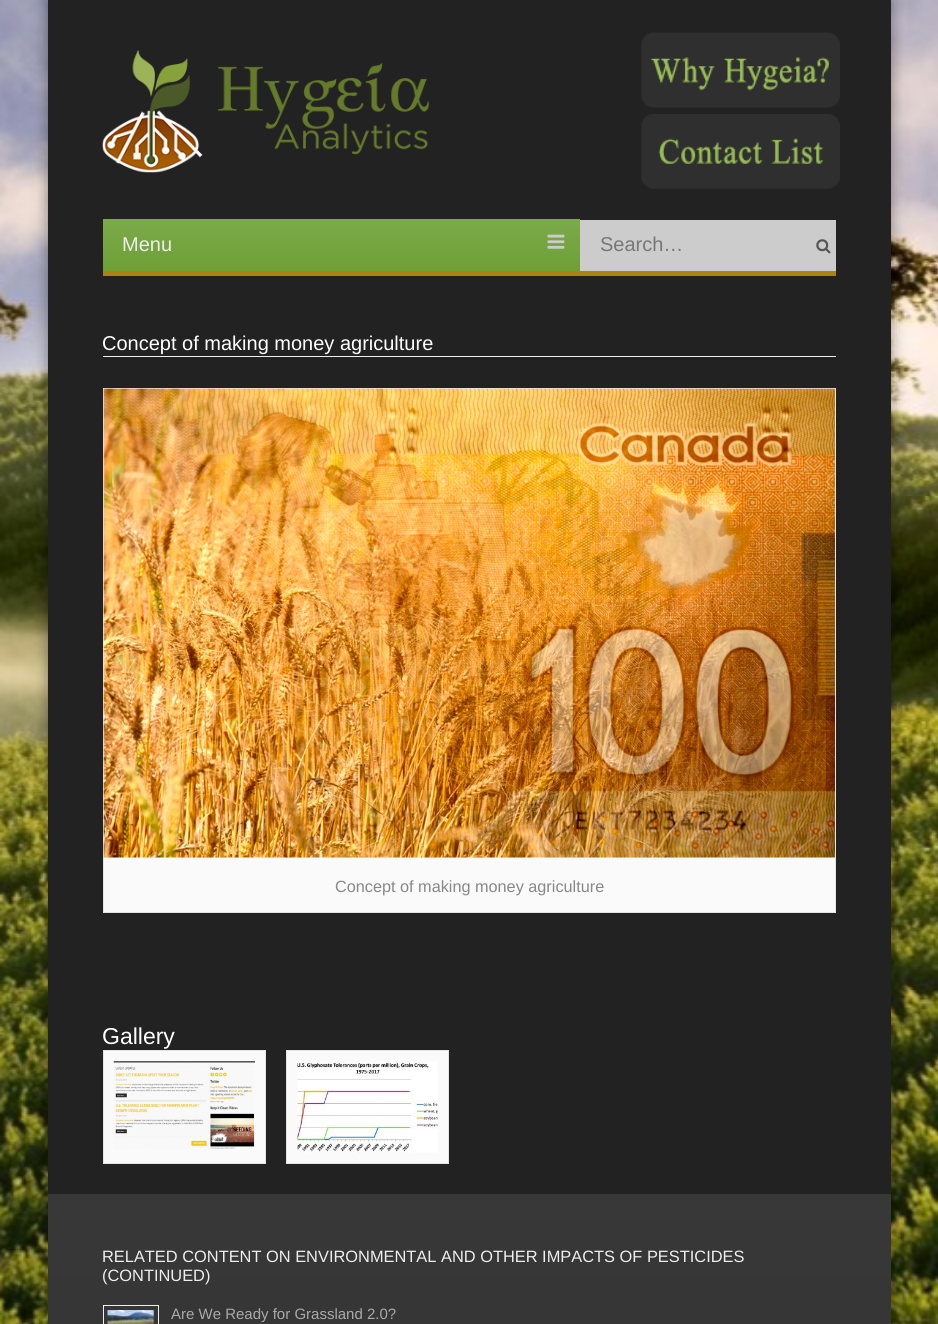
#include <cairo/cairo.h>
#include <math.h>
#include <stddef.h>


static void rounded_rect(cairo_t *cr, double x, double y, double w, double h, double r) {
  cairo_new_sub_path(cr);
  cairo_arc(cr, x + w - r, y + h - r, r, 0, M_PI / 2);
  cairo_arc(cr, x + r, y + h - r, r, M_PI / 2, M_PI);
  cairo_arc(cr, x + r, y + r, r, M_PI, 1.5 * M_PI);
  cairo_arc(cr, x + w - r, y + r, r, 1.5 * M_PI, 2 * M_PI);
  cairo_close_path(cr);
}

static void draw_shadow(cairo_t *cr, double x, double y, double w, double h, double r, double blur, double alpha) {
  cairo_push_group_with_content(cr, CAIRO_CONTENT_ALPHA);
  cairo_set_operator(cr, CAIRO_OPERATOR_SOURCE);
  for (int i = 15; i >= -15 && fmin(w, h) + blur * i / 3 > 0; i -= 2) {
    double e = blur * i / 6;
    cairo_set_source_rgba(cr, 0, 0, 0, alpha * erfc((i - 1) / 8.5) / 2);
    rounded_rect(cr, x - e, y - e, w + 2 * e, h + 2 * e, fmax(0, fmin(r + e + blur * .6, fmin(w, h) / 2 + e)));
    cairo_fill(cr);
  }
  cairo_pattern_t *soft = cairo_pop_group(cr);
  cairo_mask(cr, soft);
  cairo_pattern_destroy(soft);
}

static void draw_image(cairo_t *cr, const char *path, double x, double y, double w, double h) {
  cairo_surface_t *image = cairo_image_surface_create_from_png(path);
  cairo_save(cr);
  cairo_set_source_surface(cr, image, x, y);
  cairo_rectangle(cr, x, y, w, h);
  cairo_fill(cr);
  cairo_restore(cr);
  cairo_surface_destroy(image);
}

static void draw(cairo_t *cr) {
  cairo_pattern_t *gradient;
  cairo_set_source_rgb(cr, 1, 1, 1);
  cairo_paint(cr);
  draw_image(cr, "images/1.png", 0, 0, 938, 1324);
  cairo_set_source_rgb(cr, 0, 0, 0);
  draw_shadow(cr, 48, 0, 843, 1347, 0, 7.5, 0.4);
  cairo_set_source_rgb(cr, 34 / 255.0, 34 / 255.0, 34 / 255.0);
  cairo_rectangle(cr, 48, 0, 843, 1194);
  cairo_fill(cr);
  draw_image(cr, "images/2.png", 102, 50, 327, 123);
  draw_image(cr, "images/3.png", 641, 32, 199, 76);
  draw_image(cr, "images/4.png", 641, 114, 199, 75);
  cairo_set_source_rgb(cr, 175 / 255.0, 129 / 255.0, 21 / 255.0);
  cairo_rectangle(cr, 103, 271, 733, 5);
  cairo_fill(cr);
  gradient = cairo_pattern_create_linear(341, 219, 341, 271);
  cairo_pattern_add_color_stop_rgba(gradient, 0, 124 / 255.0, 170 / 255.0, 74 / 255.0, 1);
  cairo_pattern_add_color_stop_rgba(gradient, 1, 109 / 255.0, 160 / 255.0, 54 / 255.0, 1);
  cairo_set_source(cr, gradient);
  cairo_pattern_destroy(gradient);
  cairo_rectangle(cr, 103, 219, 477, 52);
  cairo_fill(cr);
  draw_image(cr, "images/5.png", 547, 234, 18, 15);
  cairo_set_source_rgb(cr, 204 / 255.0, 204 / 255.0, 204 / 255.0);
  cairo_rectangle(cr, 580, 220, 256, 51);
  cairo_fill(cr);
  draw_image(cr, "images/6.png", 816, 239, 15, 15);
  cairo_set_source_rgb(cr, 238 / 255.0, 238 / 255.0, 238 / 255.0);
  cairo_rectangle(cr, 103, 356, 733, 1);
  cairo_fill(cr);
  cairo_set_source_rgb(cr, 250 / 255.0, 250 / 255.0, 250 / 255.0);
  cairo_rectangle(cr, 104, 857, 731, 55);
  cairo_fill(cr);
  cairo_rectangle(cr, 103.5, 388.5, 732, 524);
  cairo_set_source_rgb(cr, 228 / 255.0, 228 / 255.0, 228 / 255.0);
  cairo_set_line_width(cr, 1);
  cairo_stroke(cr);
  draw_image(cr, "images/7.png", 103, 388, 732, 470);
  cairo_set_source_rgb(cr, 250 / 255.0, 250 / 255.0, 250 / 255.0);
  cairo_rectangle(cr, 103.5, 1050.5, 162, 113);
  cairo_fill_preserve(cr);
  cairo_set_source_rgb(cr, 228 / 255.0, 228 / 255.0, 228 / 255.0);
  cairo_stroke(cr);
  draw_image(cr, "images/8.png", 113, 1061, 142, 88);
  cairo_set_source_rgb(cr, 250 / 255.0, 250 / 255.0, 250 / 255.0);
  cairo_rectangle(cr, 286.5, 1050.5, 162, 113);
  cairo_fill_preserve(cr);
  cairo_set_source_rgb(cr, 228 / 255.0, 228 / 255.0, 228 / 255.0);
  cairo_stroke(cr);
  draw_image(cr, "images/9.png", 297, 1061, 141, 92);
  gradient = cairo_pattern_create_linear(469, 1194, 469, 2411);
  cairo_pattern_add_color_stop_rgba(gradient, 0, 56 / 255.0, 56 / 255.0, 56 / 255.0, 1);
  cairo_pattern_add_color_stop_rgba(gradient, 1, 34 / 255.0, 34 / 255.0, 34 / 255.0, 1);
  cairo_set_source(cr, gradient);
  cairo_pattern_destroy(gradient);
  cairo_rectangle(cr, 48, 1194, 843, 130);
  cairo_fill(cr);
  cairo_rectangle(cr, 103.5, 1305.5, 55, 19);
  cairo_set_source_rgb(cr, 238 / 255.0, 238 / 255.0, 238 / 255.0);
  cairo_stroke(cr);
  draw_image(cr, "images/10.png", 107, 1310, 47, 14);
  cairo_select_font_face(cr, "Liberation Sans", CAIRO_FONT_SLANT_NORMAL, CAIRO_FONT_WEIGHT_NORMAL);
  cairo_set_font_size(cr, 20);
  cairo_move_to(cr, 122, 251);
  cairo_show_text(cr, "Menu");
  cairo_set_source_rgb(cr, 119 / 255.0, 119 / 255.0, 119 / 255.0);
  cairo_move_to(cr, 600, 251);
  cairo_show_text(cr, "Search…");
  cairo_set_source_rgb(cr, 1, 1, 1);
  cairo_move_to(cr, 102, 350);
  cairo_show_text(cr, "Concept of making money agriculture");
  cairo_set_font_size(cr, 16.25);
  cairo_set_source_rgb(cr, 136 / 255.0, 136 / 255.0, 136 / 255.0);
  cairo_move_to(cr, 335, 892);
  cairo_show_text(cr, "Concept of making money agriculture");
  cairo_set_font_size(cr, 23);
  cairo_set_source_rgb(cr, 1, 1, 1);
  cairo_move_to(cr, 102, 1044);
  cairo_show_text(cr, "Gallery");
  cairo_set_font_size(cr, 16.4);
  cairo_set_source_rgb(cr, 238 / 255.0, 238 / 255.0, 238 / 255.0);
  cairo_move_to(cr, 102, 1262);
  cairo_show_text(cr, "RELATED CONTENT ON ENVIRONMENTAL AND OTHER IMPACTS OF PESTICIDES");
  cairo_move_to(cr, 102, 1281);
  cairo_show_text(cr, "(CONTINUED)");
  cairo_set_font_size(cr, 15);
  cairo_set_source_rgb(cr, 170 / 255.0, 170 / 255.0, 170 / 255.0);
  cairo_move_to(cr, 171, 1319);
  cairo_show_text(cr, "Are We Ready for Grassland 2.0?");
}

int main(void) {
  cairo_surface_t *surface = cairo_image_surface_create(CAIRO_FORMAT_RGB24, 938, 1324);
  cairo_t *cr = cairo_create(surface);
  cairo_font_options_t *options = cairo_font_options_create();
  cairo_font_options_set_hint_metrics(options, CAIRO_HINT_METRICS_OFF);
  cairo_font_options_set_hint_style(options, CAIRO_HINT_STYLE_NONE);
  cairo_set_font_options(cr, options);
  cairo_set_miter_limit(cr, 4);
  draw(cr);
  cairo_surface_write_to_png(surface, "out.png");
  cairo_font_options_destroy(options);
  cairo_destroy(cr);
  cairo_surface_destroy(surface);
  return 0;
}
